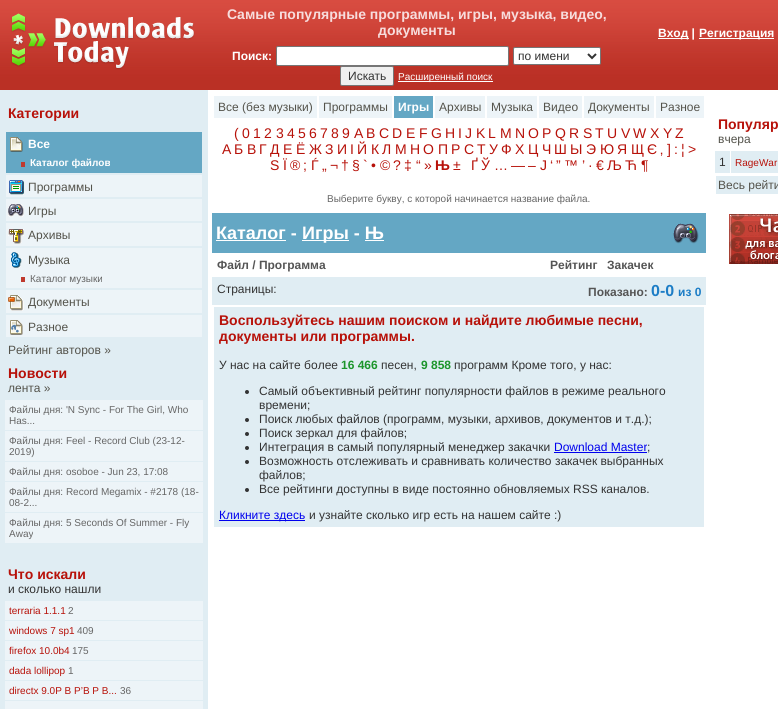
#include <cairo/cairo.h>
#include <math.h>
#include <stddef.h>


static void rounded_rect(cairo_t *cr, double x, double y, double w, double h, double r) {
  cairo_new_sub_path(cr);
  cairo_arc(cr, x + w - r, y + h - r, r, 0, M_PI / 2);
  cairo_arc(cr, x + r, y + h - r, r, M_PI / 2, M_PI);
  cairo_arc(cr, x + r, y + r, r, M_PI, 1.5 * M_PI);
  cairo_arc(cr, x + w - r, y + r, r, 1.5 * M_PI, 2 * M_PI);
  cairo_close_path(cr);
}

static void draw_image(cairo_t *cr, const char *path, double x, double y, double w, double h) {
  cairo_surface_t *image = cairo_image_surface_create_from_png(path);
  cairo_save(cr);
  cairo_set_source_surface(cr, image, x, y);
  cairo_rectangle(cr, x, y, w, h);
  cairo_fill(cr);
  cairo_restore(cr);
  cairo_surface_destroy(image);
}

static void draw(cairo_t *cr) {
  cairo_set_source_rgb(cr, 1, 1, 1);
  cairo_paint(cr);
  draw_image(cr, "images/1.png", 0, 0, 200, 90);
  draw_image(cr, "images/2.png", 11, 13, 184, 57);
  draw_image(cr, "images/3.png", 200, 0, 578, 90);
  cairo_set_source_rgb(cr, 1, 1, 1);
  cairo_rectangle(cr, 658, 38, 31, 1);
  cairo_fill(cr);
  cairo_rectangle(cr, 699, 38, 75, 1);
  cairo_fill(cr);
  rounded_rect(cr, 276.5, 46.5, 232, 19, 1.5);
  cairo_fill_preserve(cr);
  cairo_set_source_rgb(cr, 118 / 255.0, 118 / 255.0, 118 / 255.0);
  cairo_set_line_width(cr, 1);
  cairo_stroke(cr);
  cairo_set_source_rgb(cr, 1, 1, 1);
  rounded_rect(cr, 513.5, 47.5, 87, 17, 1.5);
  cairo_fill_preserve(cr);
  cairo_set_source_rgb(cr, 118 / 255.0, 118 / 255.0, 118 / 255.0);
  cairo_stroke(cr);
  cairo_new_path(cr);
  cairo_move_to(cr, 588, 54);
  cairo_line_to(cr, 592, 58);
  cairo_line_to(cr, 596, 54);
  cairo_set_source_rgb(cr, 51 / 255.0, 51 / 255.0, 51 / 255.0);
  cairo_set_line_width(cr, 2);
  cairo_stroke(cr);
  cairo_set_source_rgb(cr, 239 / 255.0, 239 / 255.0, 239 / 255.0);
  rounded_rect(cr, 340.5, 66.5, 53, 19, 1.5);
  cairo_fill_preserve(cr);
  cairo_set_source_rgb(cr, 118 / 255.0, 118 / 255.0, 118 / 255.0);
  cairo_set_line_width(cr, 1);
  cairo_stroke(cr);
  cairo_set_source_rgb(cr, 1, 1, 1);
  cairo_rectangle(cr, 398, 81, 95, 1);
  cairo_fill(cr);
  cairo_set_source_rgb(cr, 224 / 255.0, 237 / 255.0, 243 / 255.0);
  cairo_rectangle(cr, 0, 90, 208, 619);
  cairo_fill(cr);
  cairo_set_source_rgb(cr, 100 / 255.0, 167 / 255.0, 196 / 255.0);
  cairo_rectangle(cr, 6, 132, 196, 41);
  cairo_fill(cr);
  draw_image(cr, "images/4.png", 10, 137, 13, 15);
  cairo_set_source_rgb(cr, 191 / 255.0, 57 / 255.0, 46 / 255.0);
  cairo_rectangle(cr, 21, 162, 4, 5);
  cairo_fill(cr);
  cairo_set_source_rgb(cr, 237 / 255.0, 244 / 255.0, 248 / 255.0);
  cairo_rectangle(cr, 6, 175, 196, 22);
  cairo_fill(cr);
  draw_image(cr, "images/5.png", 9, 180, 15, 15);
  cairo_rectangle(cr, 6, 199, 196, 22);
  cairo_fill(cr);
  draw_image(cr, "images/6.png", 8, 203, 16, 14);
  cairo_rectangle(cr, 6, 223, 196, 23);
  cairo_fill(cr);
  draw_image(cr, "images/7.png", 8, 229, 16, 15);
  cairo_rectangle(cr, 6, 248, 196, 40);
  cairo_fill(cr);
  draw_image(cr, "images/8.png", 11, 252, 11, 16);
  cairo_set_source_rgb(cr, 191 / 255.0, 57 / 255.0, 46 / 255.0);
  cairo_rectangle(cr, 21, 277, 4, 5);
  cairo_fill(cr);
  cairo_set_source_rgb(cr, 237 / 255.0, 244 / 255.0, 248 / 255.0);
  cairo_rectangle(cr, 6, 290, 196, 23);
  cairo_fill(cr);
  draw_image(cr, "images/9.png", 8, 295, 16, 16);
  cairo_rectangle(cr, 6, 315, 196, 22);
  cairo_fill(cr);
  draw_image(cr, "images/10.png", 10, 320, 13, 15);
  cairo_rectangle(cr, 5, 400, 198, 30);
  cairo_fill(cr);
  cairo_rectangle(cr, 5, 431, 198, 30);
  cairo_fill(cr);
  cairo_rectangle(cr, 5, 462, 198, 19);
  cairo_fill(cr);
  cairo_rectangle(cr, 5, 482, 198, 30);
  cairo_fill(cr);
  cairo_rectangle(cr, 5, 513, 198, 30);
  cairo_fill(cr);
  cairo_rectangle(cr, 5, 601, 198, 19);
  cairo_fill(cr);
  cairo_rectangle(cr, 5, 621, 198, 19);
  cairo_fill(cr);
  cairo_rectangle(cr, 5, 641, 198, 19);
  cairo_fill(cr);
  cairo_rectangle(cr, 5, 661, 198, 19);
  cairo_fill(cr);
  cairo_rectangle(cr, 5, 681, 198, 19);
  cairo_fill(cr);
  cairo_rectangle(cr, 5, 701, 198, 8);
  cairo_fill(cr);
  cairo_rectangle(cr, 214, 96, 103, 22);
  cairo_fill(cr);
  cairo_rectangle(cr, 319, 96, 73, 22);
  cairo_fill(cr);
  cairo_set_source_rgb(cr, 100 / 255.0, 167 / 255.0, 196 / 255.0);
  cairo_rectangle(cr, 394, 96, 39, 22);
  cairo_fill(cr);
  cairo_set_source_rgb(cr, 237 / 255.0, 244 / 255.0, 248 / 255.0);
  cairo_rectangle(cr, 435, 96, 50, 22);
  cairo_fill(cr);
  cairo_rectangle(cr, 487, 96, 50, 22);
  cairo_fill(cr);
  cairo_rectangle(cr, 539, 96, 43, 22);
  cairo_fill(cr);
  cairo_rectangle(cr, 584, 96, 70, 22);
  cairo_fill(cr);
  cairo_rectangle(cr, 656, 96, 48, 22);
  cairo_fill(cr);
  cairo_set_source_rgb(cr, 100 / 255.0, 167 / 255.0, 196 / 255.0);
  cairo_rectangle(cr, 212, 213, 494, 40);
  cairo_fill(cr);
  cairo_set_source_rgb(cr, 1, 1, 1);
  cairo_rectangle(cr, 216, 240, 70, 1);
  cairo_fill(cr);
  cairo_rectangle(cr, 302, 240, 47, 1);
  cairo_fill(cr);
  cairo_rectangle(cr, 365, 240, 19, 1);
  cairo_fill(cr);
  draw_image(cr, "images/11.png", 673, 223, 26, 21);
  cairo_set_source_rgb(cr, 224 / 255.0, 237 / 255.0, 243 / 255.0);
  cairo_rectangle(cr, 212, 277, 494, 28);
  cairo_fill(cr);
  cairo_rectangle(cr, 214, 307, 490, 220);
  cairo_fill(cr);
  cairo_set_source_rgb(cr, 51 / 255.0, 51 / 255.0, 51 / 255.0);
  cairo_arc(cr, 247, 392, 2, 0, 2 * M_PI);
  cairo_fill(cr);
  cairo_arc(cr, 247, 420, 2, 0, 2 * M_PI);
  cairo_fill(cr);
  cairo_arc(cr, 247, 434, 2, 0, 2 * M_PI);
  cairo_fill(cr);
  cairo_arc(cr, 247, 448, 2, 0, 2 * M_PI);
  cairo_fill(cr);
  cairo_set_source_rgb(cr, 0, 0, 238 / 255.0);
  cairo_rectangle(cr, 554, 452, 93, 1);
  cairo_fill(cr);
  cairo_set_source_rgb(cr, 51 / 255.0, 51 / 255.0, 51 / 255.0);
  cairo_arc(cr, 247, 462, 2, 0, 2 * M_PI);
  cairo_fill(cr);
  cairo_arc(cr, 247, 490, 2, 0, 2 * M_PI);
  cairo_fill(cr);
  cairo_set_source_rgb(cr, 0, 0, 238 / 255.0);
  cairo_rectangle(cr, 219, 520, 86, 1);
  cairo_fill(cr);
  cairo_set_source_rgb(cr, 224 / 255.0, 237 / 255.0, 243 / 255.0);
  cairo_rectangle(cr, 715, 151, 15, 22);
  cairo_fill(cr);
  cairo_rectangle(cr, 731, 151, 47, 22);
  cairo_fill(cr);
  cairo_rectangle(cr, 716, 176, 62, 18);
  cairo_fill(cr);
  draw_image(cr, "images/12.png", 729, 214, 49, 50);
  cairo_select_font_face(cr, "Liberation Sans", CAIRO_FONT_SLANT_NORMAL, CAIRO_FONT_WEIGHT_BOLD);
  cairo_set_font_size(cr, 14);
  cairo_set_source_rgb(cr, 247 / 255.0, 221 / 255.0, 221 / 255.0);
  cairo_move_to(cr, 227, 19);
  cairo_show_text(cr, "Самые популярные программы, игры, музыка, видео,");
  cairo_move_to(cr, 378, 35);
  cairo_show_text(cr, "документы");
  cairo_set_font_size(cr, 12);
  cairo_set_source_rgb(cr, 1, 1, 1);
  cairo_move_to(cr, 658, 37);
  cairo_show_text(cr, "Вход |");
  cairo_move_to(cr, 699, 37);
  cairo_show_text(cr, "Регистрация");
  cairo_move_to(cr, 232, 60);
  cairo_show_text(cr, "Поиск:");
  cairo_select_font_face(cr, "Liberation Sans", CAIRO_FONT_SLANT_NORMAL, CAIRO_FONT_WEIGHT_NORMAL);
  cairo_set_source_rgb(cr, 51 / 255.0, 51 / 255.0, 51 / 255.0);
  cairo_move_to(cr, 518, 60);
  cairo_show_text(cr, "по имени");
  cairo_move_to(cr, 348, 80);
  cairo_show_text(cr, "Искать");
  cairo_set_font_size(cr, 10);
  cairo_set_source_rgb(cr, 1, 1, 1);
  cairo_move_to(cr, 398, 80);
  cairo_show_text(cr, "Расширенный поиск");
  cairo_select_font_face(cr, "Liberation Sans", CAIRO_FONT_SLANT_NORMAL, CAIRO_FONT_WEIGHT_BOLD);
  cairo_set_font_size(cr, 14);
  cairo_set_source_rgb(cr, 183 / 255.0, 17 / 255.0, 9 / 255.0);
  cairo_move_to(cr, 8, 118);
  cairo_show_text(cr, "Категории");
  cairo_set_font_size(cr, 12);
  cairo_set_source_rgb(cr, 1, 1, 1);
  cairo_move_to(cr, 28, 148);
  cairo_show_text(cr, "Все");
  cairo_set_font_size(cr, 10);
  cairo_move_to(cr, 30, 166);
  cairo_show_text(cr, "Каталог файлов");
  cairo_select_font_face(cr, "Liberation Sans", CAIRO_FONT_SLANT_NORMAL, CAIRO_FONT_WEIGHT_NORMAL);
  cairo_set_font_size(cr, 12);
  cairo_set_source_rgb(cr, 84 / 255.0, 83 / 255.0, 75 / 255.0);
  cairo_move_to(cr, 28, 191);
  cairo_show_text(cr, "Программы");
  cairo_move_to(cr, 28, 215);
  cairo_show_text(cr, "Игры");
  cairo_move_to(cr, 28, 239);
  cairo_show_text(cr, "Архивы");
  cairo_move_to(cr, 28, 264);
  cairo_show_text(cr, "Музыка");
  cairo_set_font_size(cr, 10);
  cairo_set_source_rgb(cr, 102 / 255.0, 102 / 255.0, 102 / 255.0);
  cairo_move_to(cr, 30, 282);
  cairo_show_text(cr, "Каталог музыки");
  cairo_set_font_size(cr, 12);
  cairo_set_source_rgb(cr, 84 / 255.0, 83 / 255.0, 75 / 255.0);
  cairo_move_to(cr, 28, 306);
  cairo_show_text(cr, "Документы");
  cairo_move_to(cr, 28, 331);
  cairo_show_text(cr, "Разное");
  cairo_move_to(cr, 8, 354);
  cairo_show_text(cr, "Рейтинг авторов »");
  cairo_select_font_face(cr, "Liberation Sans", CAIRO_FONT_SLANT_NORMAL, CAIRO_FONT_WEIGHT_BOLD);
  cairo_set_font_size(cr, 14);
  cairo_set_source_rgb(cr, 183 / 255.0, 17 / 255.0, 9 / 255.0);
  cairo_move_to(cr, 8, 378);
  cairo_show_text(cr, "Новости");
  cairo_select_font_face(cr, "Liberation Sans", CAIRO_FONT_SLANT_NORMAL, CAIRO_FONT_WEIGHT_NORMAL);
  cairo_set_font_size(cr, 12);
  cairo_set_source_rgb(cr, 84 / 255.0, 83 / 255.0, 75 / 255.0);
  cairo_move_to(cr, 8, 392);
  cairo_show_text(cr, "лента »");
  cairo_set_font_size(cr, 10);
  cairo_set_source_rgb(cr, 102 / 255.0, 102 / 255.0, 102 / 255.0);
  cairo_move_to(cr, 9, 413);
  cairo_show_text(cr, "Файлы дня: 'N Sync - For The Girl, Who");
  cairo_move_to(cr, 9, 424);
  cairo_show_text(cr, "Has...");
  cairo_move_to(cr, 9, 444);
  cairo_show_text(cr, "Файлы дня: Feel - Record Club (23-12-");
  cairo_move_to(cr, 9, 455);
  cairo_show_text(cr, "2019)");
  cairo_move_to(cr, 9, 475);
  cairo_show_text(cr, "Файлы дня: osoboe - Jun 23, 17:08");
  cairo_move_to(cr, 9, 495);
  cairo_show_text(cr, "Файлы дня: Record Megamix - #2178 (18-");
  cairo_move_to(cr, 9, 506);
  cairo_show_text(cr, "08-2...");
  cairo_move_to(cr, 9, 526);
  cairo_show_text(cr, "Файлы дня: 5 Seconds Of Summer - Fly");
  cairo_move_to(cr, 9, 537);
  cairo_show_text(cr, "Away");
  cairo_select_font_face(cr, "Liberation Sans", CAIRO_FONT_SLANT_NORMAL, CAIRO_FONT_WEIGHT_BOLD);
  cairo_set_font_size(cr, 14);
  cairo_set_source_rgb(cr, 183 / 255.0, 17 / 255.0, 9 / 255.0);
  cairo_move_to(cr, 8, 579);
  cairo_show_text(cr, "Что искали");
  cairo_select_font_face(cr, "Liberation Sans", CAIRO_FONT_SLANT_NORMAL, CAIRO_FONT_WEIGHT_NORMAL);
  cairo_set_font_size(cr, 12);
  cairo_set_source_rgb(cr, 51 / 255.0, 51 / 255.0, 51 / 255.0);
  cairo_move_to(cr, 8, 593);
  cairo_show_text(cr, "и сколько нашли");
  cairo_set_font_size(cr, 10);
  cairo_set_source_rgb(cr, 183 / 255.0, 17 / 255.0, 9 / 255.0);
  cairo_move_to(cr, 9, 614);
  cairo_show_text(cr, "terraria 1.1.1");
  cairo_set_source_rgb(cr, 102 / 255.0, 102 / 255.0, 102 / 255.0);
  cairo_move_to(cr, 68, 614);
  cairo_show_text(cr, "2");
  cairo_set_source_rgb(cr, 183 / 255.0, 17 / 255.0, 9 / 255.0);
  cairo_move_to(cr, 9, 634);
  cairo_show_text(cr, "windows 7 sp1");
  cairo_set_source_rgb(cr, 102 / 255.0, 102 / 255.0, 102 / 255.0);
  cairo_move_to(cr, 77, 634);
  cairo_show_text(cr, "409");
  cairo_set_source_rgb(cr, 183 / 255.0, 17 / 255.0, 9 / 255.0);
  cairo_move_to(cr, 9, 654);
  cairo_show_text(cr, "firefox 10.0b4");
  cairo_set_source_rgb(cr, 102 / 255.0, 102 / 255.0, 102 / 255.0);
  cairo_move_to(cr, 72, 654);
  cairo_show_text(cr, "175");
  cairo_set_source_rgb(cr, 183 / 255.0, 17 / 255.0, 9 / 255.0);
  cairo_move_to(cr, 9, 674);
  cairo_show_text(cr, "dada lollipop");
  cairo_set_source_rgb(cr, 102 / 255.0, 102 / 255.0, 102 / 255.0);
  cairo_move_to(cr, 68, 674);
  cairo_show_text(cr, "1");
  cairo_set_source_rgb(cr, 183 / 255.0, 17 / 255.0, 9 / 255.0);
  cairo_move_to(cr, 9, 694);
  cairo_show_text(cr, "directx 9.0Р В Р’В Р В...");
  cairo_set_source_rgb(cr, 102 / 255.0, 102 / 255.0, 102 / 255.0);
  cairo_move_to(cr, 120, 694);
  cairo_show_text(cr, "36");
  cairo_set_font_size(cr, 12);
  cairo_set_source_rgb(cr, 84 / 255.0, 83 / 255.0, 75 / 255.0);
  cairo_move_to(cr, 218, 111);
  cairo_show_text(cr, "Все (без музыки)");
  cairo_move_to(cr, 323, 111);
  cairo_show_text(cr, "Программы");
  cairo_select_font_face(cr, "Liberation Sans", CAIRO_FONT_SLANT_NORMAL, CAIRO_FONT_WEIGHT_BOLD);
  cairo_set_source_rgb(cr, 1, 1, 1);
  cairo_move_to(cr, 398, 111);
  cairo_show_text(cr, "Игры");
  cairo_select_font_face(cr, "Liberation Sans", CAIRO_FONT_SLANT_NORMAL, CAIRO_FONT_WEIGHT_NORMAL);
  cairo_set_source_rgb(cr, 84 / 255.0, 83 / 255.0, 75 / 255.0);
  cairo_move_to(cr, 439, 111);
  cairo_show_text(cr, "Архивы");
  cairo_move_to(cr, 491, 111);
  cairo_show_text(cr, "Музыка");
  cairo_move_to(cr, 543, 111);
  cairo_show_text(cr, "Видео");
  cairo_move_to(cr, 588, 111);
  cairo_show_text(cr, "Документы");
  cairo_move_to(cr, 660, 111);
  cairo_show_text(cr, "Разное");
  cairo_set_font_size(cr, 14);
  cairo_set_source_rgb(cr, 183 / 255.0, 17 / 255.0, 9 / 255.0);
  cairo_move_to(cr, 234, 138);
  cairo_show_text(cr, "(");
  cairo_move_to(cr, 242, 138);
  cairo_show_text(cr, "0");
  cairo_move_to(cr, 253, 138);
  cairo_show_text(cr, "1");
  cairo_move_to(cr, 264, 138);
  cairo_show_text(cr, "2");
  cairo_move_to(cr, 276, 138);
  cairo_show_text(cr, "3");
  cairo_move_to(cr, 287, 138);
  cairo_show_text(cr, "4");
  cairo_move_to(cr, 298, 138);
  cairo_show_text(cr, "5");
  cairo_move_to(cr, 309, 138);
  cairo_show_text(cr, "6");
  cairo_move_to(cr, 320, 138);
  cairo_show_text(cr, "7");
  cairo_move_to(cr, 331, 138);
  cairo_show_text(cr, "8");
  cairo_move_to(cr, 342, 138);
  cairo_show_text(cr, "9");
  cairo_move_to(cr, 354, 138);
  cairo_show_text(cr, "A");
  cairo_move_to(cr, 366, 138);
  cairo_show_text(cr, "B");
  cairo_move_to(cr, 379, 138);
  cairo_show_text(cr, "C");
  cairo_move_to(cr, 392, 138);
  cairo_show_text(cr, "D");
  cairo_move_to(cr, 406, 138);
  cairo_show_text(cr, "E");
  cairo_move_to(cr, 419, 138);
  cairo_show_text(cr, "F");
  cairo_move_to(cr, 431, 138);
  cairo_show_text(cr, "G");
  cairo_move_to(cr, 445, 138);
  cairo_show_text(cr, "H");
  cairo_move_to(cr, 458, 138);
  cairo_show_text(cr, "I");
  cairo_move_to(cr, 465, 138);
  cairo_show_text(cr, "J");
  cairo_move_to(cr, 476, 138);
  cairo_show_text(cr, "K");
  cairo_move_to(cr, 488, 138);
  cairo_show_text(cr, "L");
  cairo_move_to(cr, 500, 138);
  cairo_show_text(cr, "M");
  cairo_move_to(cr, 515, 138);
  cairo_show_text(cr, "N");
  cairo_move_to(cr, 528, 138);
  cairo_show_text(cr, "O");
  cairo_move_to(cr, 542, 138);
  cairo_show_text(cr, "P");
  cairo_move_to(cr, 555, 138);
  cairo_show_text(cr, "Q");
  cairo_move_to(cr, 569, 138);
  cairo_show_text(cr, "R");
  cairo_move_to(cr, 583, 138);
  cairo_show_text(cr, "S");
  cairo_move_to(cr, 595, 138);
  cairo_show_text(cr, "T");
  cairo_move_to(cr, 607, 138);
  cairo_show_text(cr, "U");
  cairo_move_to(cr, 621, 138);
  cairo_show_text(cr, "V");
  cairo_move_to(cr, 633, 138);
  cairo_show_text(cr, "W");
  cairo_move_to(cr, 650, 138);
  cairo_show_text(cr, "X");
  cairo_move_to(cr, 663, 138);
  cairo_show_text(cr, "Y");
  cairo_move_to(cr, 675, 138);
  cairo_show_text(cr, "Z");
  cairo_move_to(cr, 222, 154);
  cairo_show_text(cr, "А");
  cairo_move_to(cr, 234, 154);
  cairo_show_text(cr, "Б");
  cairo_move_to(cr, 247, 154);
  cairo_show_text(cr, "В");
  cairo_move_to(cr, 259, 154);
  cairo_show_text(cr, "Г");
  cairo_move_to(cr, 270, 154);
  cairo_show_text(cr, "Д");
  cairo_move_to(cr, 283, 154);
  cairo_show_text(cr, "Е");
  cairo_move_to(cr, 296, 154);
  cairo_show_text(cr, "Ё");
  cairo_move_to(cr, 309, 154);
  cairo_show_text(cr, "Ж");
  cairo_move_to(cr, 325, 154);
  cairo_show_text(cr, "З");
  cairo_move_to(cr, 337, 154);
  cairo_show_text(cr, "И");
  cairo_move_to(cr, 350, 154);
  cairo_show_text(cr, "І");
  cairo_move_to(cr, 357, 154);
  cairo_show_text(cr, "Й");
  cairo_move_to(cr, 371, 154);
  cairo_show_text(cr, "К");
  cairo_move_to(cr, 382, 154);
  cairo_show_text(cr, "Л");
  cairo_move_to(cr, 395, 154);
  cairo_show_text(cr, "М");
  cairo_move_to(cr, 410, 154);
  cairo_show_text(cr, "Н");
  cairo_move_to(cr, 423, 154);
  cairo_show_text(cr, "О");
  cairo_move_to(cr, 438, 154);
  cairo_show_text(cr, "П");
  cairo_move_to(cr, 451, 154);
  cairo_show_text(cr, "Р");
  cairo_move_to(cr, 464, 154);
  cairo_show_text(cr, "С");
  cairo_move_to(cr, 477, 154);
  cairo_show_text(cr, "Т");
  cairo_move_to(cr, 489, 154);
  cairo_show_text(cr, "У");
  cairo_move_to(cr, 501, 154);
  cairo_show_text(cr, "Ф");
  cairo_move_to(cr, 515, 154);
  cairo_show_text(cr, "Х");
  cairo_move_to(cr, 528, 154);
  cairo_show_text(cr, "Ц");
  cairo_move_to(cr, 542, 154);
  cairo_show_text(cr, "Ч");
  cairo_move_to(cr, 554, 154);
  cairo_show_text(cr, "Ш");
  cairo_move_to(cr, 570, 154);
  cairo_show_text(cr, "Ы");
  cairo_move_to(cr, 586, 154);
  cairo_show_text(cr, "Э");
  cairo_move_to(cr, 600, 154);
  cairo_show_text(cr, "Ю");
  cairo_move_to(cr, 617, 154);
  cairo_show_text(cr, "Я");
  cairo_move_to(cr, 631, 154);
  cairo_show_text(cr, "Щ");
  cairo_move_to(cr, 647, 154);
  cairo_show_text(cr, "Є");
  cairo_move_to(cr, 660, 154);
  cairo_show_text(cr, "‚");
  cairo_move_to(cr, 667, 154);
  cairo_show_text(cr, "]");
  cairo_move_to(cr, 674, 154);
  cairo_show_text(cr, ":");
  cairo_move_to(cr, 681, 154);
  cairo_show_text(cr, "¦");
  cairo_move_to(cr, 688, 154);
  cairo_show_text(cr, ">");
  cairo_move_to(cr, 270, 170);
  cairo_show_text(cr, "Ѕ");
  cairo_move_to(cr, 283, 170);
  cairo_show_text(cr, "Ї");
  cairo_move_to(cr, 290, 170);
  cairo_show_text(cr, "®");
  cairo_move_to(cr, 303, 170);
  cairo_show_text(cr, ";");
  cairo_move_to(cr, 311, 170);
  cairo_show_text(cr, "Ѓ");
  cairo_move_to(cr, 330, 170);
  cairo_show_text(cr, "¬");
  cairo_move_to(cr, 341, 170);
  cairo_show_text(cr, "†");
  cairo_move_to(cr, 352, 170);
  cairo_show_text(cr, "§");
  cairo_move_to(cr, 363, 170);
  cairo_show_text(cr, "`");
  cairo_move_to(cr, 371, 170);
  cairo_show_text(cr, "•");
  cairo_move_to(cr, 380, 170);
  cairo_show_text(cr, "©");
  cairo_move_to(cr, 393, 170);
  cairo_show_text(cr, "?");
  cairo_move_to(cr, 404, 170);
  cairo_show_text(cr, "‡");
  cairo_move_to(cr, 416, 170);
  cairo_show_text(cr, "“");
  cairo_move_to(cr, 424, 170);
  cairo_show_text(cr, "»");
  cairo_select_font_face(cr, "Liberation Sans", CAIRO_FONT_SLANT_NORMAL, CAIRO_FONT_WEIGHT_BOLD);
  cairo_move_to(cr, 435, 170);
  cairo_show_text(cr, "Њ");
  cairo_select_font_face(cr, "Liberation Sans", CAIRO_FONT_SLANT_NORMAL, CAIRO_FONT_WEIGHT_NORMAL);
  cairo_move_to(cr, 453, 170);
  cairo_show_text(cr, "±");
  cairo_move_to(cr, 471, 170);
  cairo_show_text(cr, "Ґ");
  cairo_move_to(cr, 481, 170);
  cairo_show_text(cr, "Ў");
  cairo_move_to(cr, 511, 170);
  cairo_show_text(cr, "—");
  cairo_move_to(cr, 528, 170);
  cairo_show_text(cr, "–");
  cairo_move_to(cr, 540, 170);
  cairo_show_text(cr, "Ј");
  cairo_move_to(cr, 550, 170);
  cairo_show_text(cr, "‘");
  cairo_move_to(cr, 556, 170);
  cairo_show_text(cr, "”");
  cairo_move_to(cr, 564, 170);
  cairo_show_text(cr, "™");
  cairo_move_to(cr, 582, 170);
  cairo_show_text(cr, "’");
  cairo_move_to(cr, 588, 170);
  cairo_show_text(cr, "·");
  cairo_move_to(cr, 596, 170);
  cairo_show_text(cr, "€");
  cairo_move_to(cr, 607, 170);
  cairo_show_text(cr, "Љ");
  cairo_move_to(cr, 625, 170);
  cairo_show_text(cr, "Ћ");
  cairo_move_to(cr, 641, 170);
  cairo_show_text(cr, "¶");
  cairo_move_to(cr, 322, 170);
  cairo_show_text(cr, "„");
  cairo_move_to(cr, 494, 170);
  cairo_show_text(cr, "…");
  cairo_set_font_size(cr, 10);
  cairo_set_source_rgb(cr, 102 / 255.0, 102 / 255.0, 102 / 255.0);
  cairo_move_to(cr, 327, 202);
  cairo_show_text(cr, "Выберите букву, с которой начинается название файла.");
  cairo_select_font_face(cr, "Liberation Sans", CAIRO_FONT_SLANT_NORMAL, CAIRO_FONT_WEIGHT_BOLD);
  cairo_set_font_size(cr, 18);
  cairo_set_source_rgb(cr, 1, 1, 1);
  cairo_move_to(cr, 216, 239);
  cairo_show_text(cr, "Каталог -");
  cairo_move_to(cr, 302, 239);
  cairo_show_text(cr, "Игры - Њ");
  cairo_set_font_size(cr, 12);
  cairo_set_source_rgb(cr, 85 / 255.0, 85 / 255.0, 85 / 255.0);
  cairo_move_to(cr, 217, 269);
  cairo_show_text(cr, "Файл / Программа");
  cairo_move_to(cr, 550, 269);
  cairo_show_text(cr, "Рейтинг");
  cairo_move_to(cr, 607, 269);
  cairo_show_text(cr, "Закачек");
  cairo_select_font_face(cr, "Liberation Sans", CAIRO_FONT_SLANT_NORMAL, CAIRO_FONT_WEIGHT_NORMAL);
  cairo_set_source_rgb(cr, 51 / 255.0, 51 / 255.0, 51 / 255.0);
  cairo_move_to(cr, 217, 293);
  cairo_show_text(cr, "Страницы:");
  cairo_select_font_face(cr, "Liberation Sans", CAIRO_FONT_SLANT_NORMAL, CAIRO_FONT_WEIGHT_BOLD);
  cairo_set_source_rgb(cr, 85 / 255.0, 85 / 255.0, 85 / 255.0);
  cairo_move_to(cr, 588, 296);
  cairo_show_text(cr, "Показано:");
  cairo_set_font_size(cr, 16);
  cairo_set_source_rgb(cr, 28 / 255.0, 125 / 255.0, 198 / 255.0);
  cairo_move_to(cr, 651, 296);
  cairo_show_text(cr, "0-0");
  cairo_set_font_size(cr, 12);
  cairo_move_to(cr, 678, 296);
  cairo_show_text(cr, "из 0");
  cairo_set_font_size(cr, 14);
  cairo_set_source_rgb(cr, 183 / 255.0, 17 / 255.0, 9 / 255.0);
  cairo_move_to(cr, 219, 325);
  cairo_show_text(cr, "Воспользуйтесь нашим поиском и найдите любимые песни,");
  cairo_move_to(cr, 219, 341);
  cairo_show_text(cr, "документы или программы.");
  cairo_select_font_face(cr, "Liberation Sans", CAIRO_FONT_SLANT_NORMAL, CAIRO_FONT_WEIGHT_NORMAL);
  cairo_set_font_size(cr, 12);
  cairo_set_source_rgb(cr, 51 / 255.0, 51 / 255.0, 51 / 255.0);
  cairo_move_to(cr, 219, 369);
  cairo_show_text(cr, "У нас на сайте более");
  cairo_select_font_face(cr, "Liberation Sans", CAIRO_FONT_SLANT_NORMAL, CAIRO_FONT_WEIGHT_BOLD);
  cairo_set_source_rgb(cr, 28 / 255.0, 149 / 255.0, 43 / 255.0);
  cairo_move_to(cr, 341, 369);
  cairo_show_text(cr, "16 466");
  cairo_select_font_face(cr, "Liberation Sans", CAIRO_FONT_SLANT_NORMAL, CAIRO_FONT_WEIGHT_NORMAL);
  cairo_set_source_rgb(cr, 51 / 255.0, 51 / 255.0, 51 / 255.0);
  cairo_move_to(cr, 381, 369);
  cairo_show_text(cr, "песен,");
  cairo_select_font_face(cr, "Liberation Sans", CAIRO_FONT_SLANT_NORMAL, CAIRO_FONT_WEIGHT_BOLD);
  cairo_set_source_rgb(cr, 28 / 255.0, 149 / 255.0, 43 / 255.0);
  cairo_move_to(cr, 421, 369);
  cairo_show_text(cr, "9 858");
  cairo_select_font_face(cr, "Liberation Sans", CAIRO_FONT_SLANT_NORMAL, CAIRO_FONT_WEIGHT_NORMAL);
  cairo_set_source_rgb(cr, 51 / 255.0, 51 / 255.0, 51 / 255.0);
  cairo_move_to(cr, 454, 369);
  cairo_show_text(cr, "программ Кроме того, у нас:");
  cairo_move_to(cr, 259, 395);
  cairo_show_text(cr, "Самый объективный рейтинг популярности файлов в режиме реального");
  cairo_move_to(cr, 259, 409);
  cairo_show_text(cr, "времени;");
  cairo_move_to(cr, 259, 423);
  cairo_show_text(cr, "Поиск любых файлов (программ, музыки, архивов, документов и т.д.);");
  cairo_move_to(cr, 259, 437);
  cairo_show_text(cr, "Поиск зеркал для файлов;");
  cairo_move_to(cr, 259, 451);
  cairo_show_text(cr, "Интеграция в самый популярный менеджер закачки");
  cairo_set_source_rgb(cr, 0, 0, 238 / 255.0);
  cairo_move_to(cr, 554, 451);
  cairo_show_text(cr, "Download Master");
  cairo_set_source_rgb(cr, 51 / 255.0, 51 / 255.0, 51 / 255.0);
  cairo_move_to(cr, 647, 451);
  cairo_show_text(cr, ";");
  cairo_move_to(cr, 259, 465);
  cairo_show_text(cr, "Возможность отслеживать и сравнивать количество закачек выбранных");
  cairo_move_to(cr, 259, 479);
  cairo_show_text(cr, "файлов;");
  cairo_move_to(cr, 259, 493);
  cairo_show_text(cr, "Все рейтинги доступны в виде постоянно обновляемых RSS каналов.");
  cairo_set_source_rgb(cr, 0, 0, 238 / 255.0);
  cairo_move_to(cr, 219, 519);
  cairo_show_text(cr, "Кликните здесь");
  cairo_set_source_rgb(cr, 51 / 255.0, 51 / 255.0, 51 / 255.0);
  cairo_move_to(cr, 309, 519);
  cairo_show_text(cr, "и узнайте сколько игр есть на нашем сайте :)");
  cairo_select_font_face(cr, "Liberation Sans", CAIRO_FONT_SLANT_NORMAL, CAIRO_FONT_WEIGHT_BOLD);
  cairo_set_font_size(cr, 14);
  cairo_set_source_rgb(cr, 183 / 255.0, 17 / 255.0, 9 / 255.0);
  cairo_move_to(cr, 718, 129);
  cairo_show_text(cr, "Популяр");
  cairo_select_font_face(cr, "Liberation Sans", CAIRO_FONT_SLANT_NORMAL, CAIRO_FONT_WEIGHT_NORMAL);
  cairo_set_font_size(cr, 12);
  cairo_set_source_rgb(cr, 84 / 255.0, 83 / 255.0, 75 / 255.0);
  cairo_move_to(cr, 718, 143);
  cairo_show_text(cr, "вчера");
  cairo_set_source_rgb(cr, 51 / 255.0, 51 / 255.0, 51 / 255.0);
  cairo_move_to(cr, 719, 166);
  cairo_show_text(cr, "1");
  cairo_set_font_size(cr, 10);
  cairo_set_source_rgb(cr, 183 / 255.0, 17 / 255.0, 9 / 255.0);
  cairo_move_to(cr, 735, 166);
  cairo_show_text(cr, "RageWar");
  cairo_set_font_size(cr, 12);
  cairo_set_source_rgb(cr, 84 / 255.0, 83 / 255.0, 75 / 255.0);
  cairo_move_to(cr, 718, 189);
  cairo_show_text(cr, "Весь рейти");
}

int main(void) {
  cairo_surface_t *surface = cairo_image_surface_create(CAIRO_FORMAT_RGB24, 778, 709);
  cairo_t *cr = cairo_create(surface);
  cairo_font_options_t *options = cairo_font_options_create();
  cairo_font_options_set_hint_metrics(options, CAIRO_HINT_METRICS_OFF);
  cairo_font_options_set_hint_style(options, CAIRO_HINT_STYLE_NONE);
  cairo_set_font_options(cr, options);
  cairo_set_miter_limit(cr, 4);
  draw(cr);
  cairo_surface_write_to_png(surface, "out.png");
  cairo_font_options_destroy(options);
  cairo_destroy(cr);
  cairo_surface_destroy(surface);
  return 0;
}
